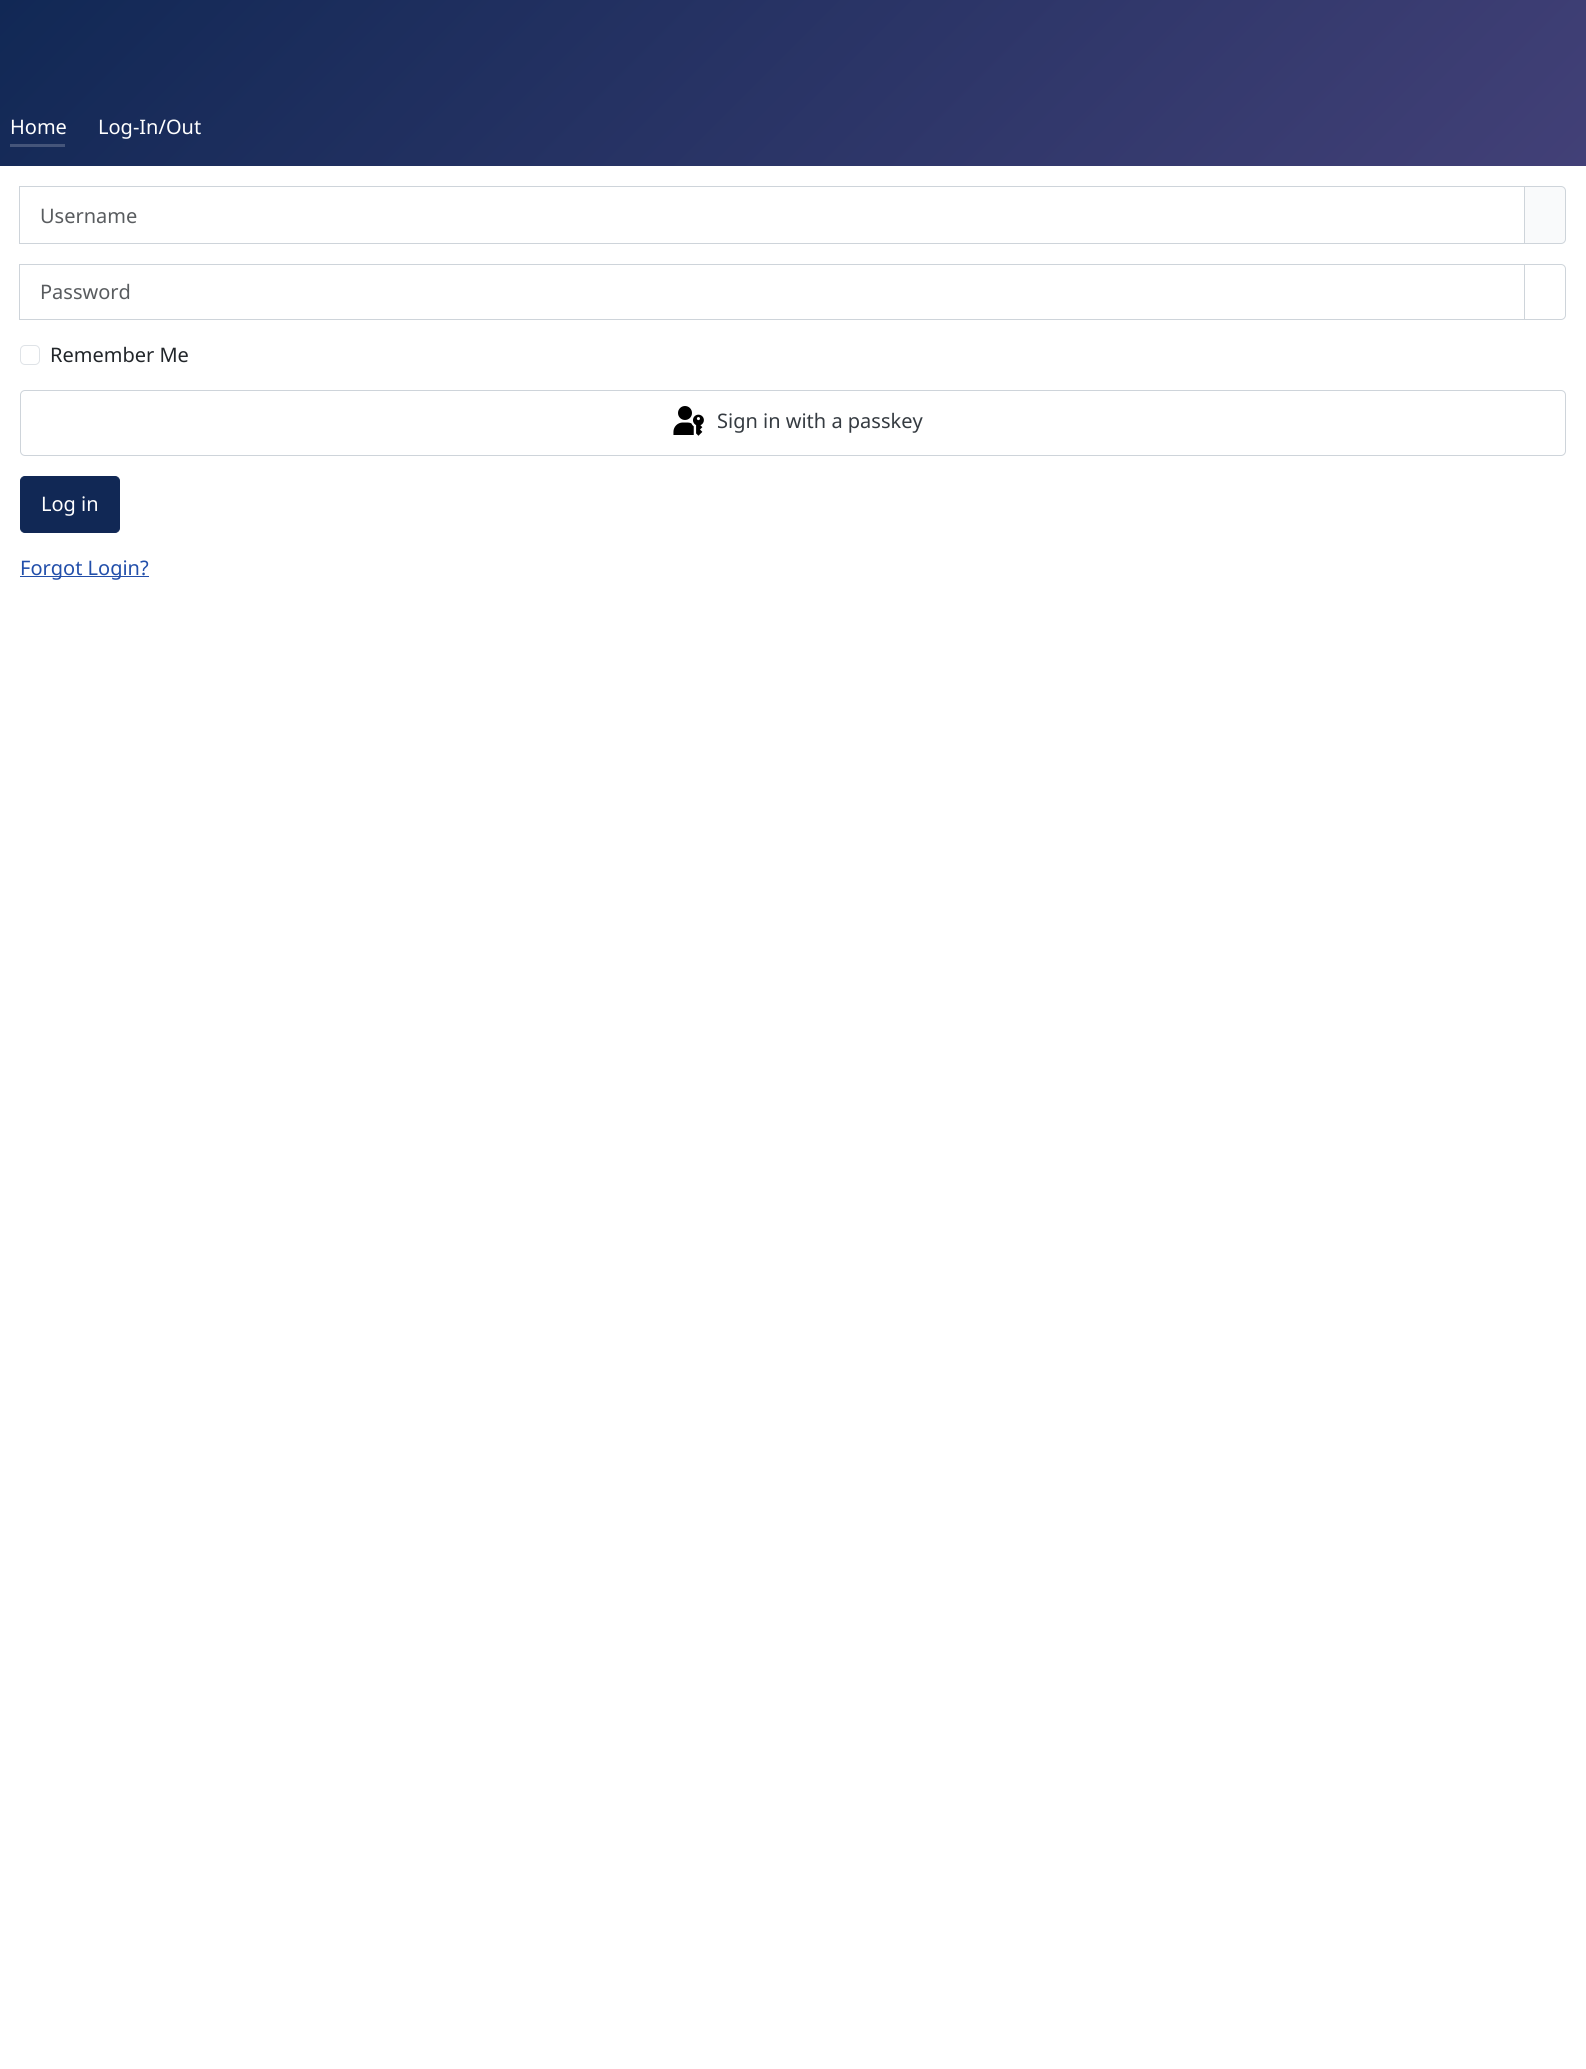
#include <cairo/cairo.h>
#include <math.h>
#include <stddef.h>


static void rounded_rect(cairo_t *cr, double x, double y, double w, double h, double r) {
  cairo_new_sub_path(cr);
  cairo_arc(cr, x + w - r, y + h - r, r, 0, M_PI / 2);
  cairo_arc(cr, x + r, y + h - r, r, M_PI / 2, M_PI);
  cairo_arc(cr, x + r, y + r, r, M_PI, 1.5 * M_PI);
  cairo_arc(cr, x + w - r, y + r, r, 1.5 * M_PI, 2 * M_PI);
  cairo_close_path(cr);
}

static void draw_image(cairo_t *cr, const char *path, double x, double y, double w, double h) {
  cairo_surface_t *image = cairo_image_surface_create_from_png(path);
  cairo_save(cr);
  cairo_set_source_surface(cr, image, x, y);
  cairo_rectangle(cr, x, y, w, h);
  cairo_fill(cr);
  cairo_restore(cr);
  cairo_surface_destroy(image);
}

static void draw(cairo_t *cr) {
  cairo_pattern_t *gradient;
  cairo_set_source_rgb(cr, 1, 1, 1);
  cairo_paint(cr);
  gradient = cairo_pattern_create_linear(355, -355, 1231, 521);
  cairo_pattern_add_color_stop_rgba(gradient, 0, 17 / 255.0, 40 / 255.0, 85 / 255.0, 1);
  cairo_pattern_add_color_stop_rgba(gradient, 1, 66 / 255.0, 64 / 255.0, 119 / 255.0, 1);
  cairo_set_source(cr, gradient);
  cairo_pattern_destroy(gradient);
  cairo_rectangle(cr, 0, 0, 1586, 166);
  cairo_fill(cr);
  cairo_set_source_rgb(cr, 69 / 255.0, 85 / 255.0, 122 / 255.0);
  cairo_rectangle(cr, 10, 144, 55, 3);
  cairo_fill(cr);
  cairo_set_source_rgb(cr, 249 / 255.0, 250 / 255.0, 251 / 255.0);
  cairo_new_path(cr);
  cairo_move_to(cr, 1524.5, 186.5);
  cairo_line_to(cr, 1561, 186.5);
  cairo_curve_to(cr, 1563.5, 186.5, 1565.5, 188.5, 1565.5, 191);
  cairo_line_to(cr, 1565.5, 239);
  cairo_curve_to(cr, 1565.5, 241.5, 1563.5, 243.5, 1561, 243.5);
  cairo_line_to(cr, 1524.5, 243.5);
  cairo_close_path(cr);
  cairo_fill_preserve(cr);
  cairo_set_source_rgb(cr, 206 / 255.0, 212 / 255.0, 218 / 255.0);
  cairo_set_line_width(cr, 1);
  cairo_stroke(cr);
  cairo_rectangle(cr, 19.5, 186.5, 1505, 57);
  cairo_stroke(cr);
  cairo_rectangle(cr, 19.5, 264.5, 1505, 55);
  cairo_stroke(cr);
  cairo_set_source_rgb(cr, 1, 1, 1);
  cairo_new_path(cr);
  cairo_move_to(cr, 1524.5, 264.5);
  cairo_line_to(cr, 1561, 264.5);
  cairo_curve_to(cr, 1563.5, 264.5, 1565.5, 266.5, 1565.5, 269);
  cairo_line_to(cr, 1565.5, 315);
  cairo_curve_to(cr, 1565.5, 317.5, 1563.5, 319.5, 1561, 319.5);
  cairo_line_to(cr, 1524.5, 319.5);
  cairo_close_path(cr);
  cairo_fill_preserve(cr);
  cairo_set_source_rgb(cr, 206 / 255.0, 212 / 255.0, 218 / 255.0);
  cairo_stroke(cr);
  rounded_rect(cr, 20.5, 345.5, 19, 19, 4.5);
  cairo_set_source_rgb(cr, 223 / 255.0, 227 / 255.0, 231 / 255.0);
  cairo_stroke(cr);
  rounded_rect(cr, 20.5, 390.5, 1545, 65, 4.5);
  cairo_set_source_rgb(cr, 206 / 255.0, 212 / 255.0, 218 / 255.0);
  cairo_stroke(cr);
  draw_image(cr, "images/1.png", 673, 406, 31, 30);
  cairo_set_source_rgb(cr, 17 / 255.0, 40 / 255.0, 85 / 255.0);
  rounded_rect(cr, 20.5, 476.5, 99, 56, 4.5);
  cairo_fill_preserve(cr);
  cairo_stroke(cr);
  cairo_set_source_rgb(cr, 34 / 255.0, 79 / 255.0, 170 / 255.0);
  cairo_rectangle(cr, 20, 576, 129, 1);
  cairo_fill(cr);
  cairo_select_font_face(cr, "Noto Sans", CAIRO_FONT_SLANT_NORMAL, CAIRO_FONT_WEIGHT_NORMAL);
  cairo_set_font_size(cr, 20);
  cairo_set_source_rgb(cr, 1, 1, 1);
  cairo_move_to(cr, 10, 134);
  cairo_show_text(cr, "Home");
  cairo_move_to(cr, 98, 134);
  cairo_show_text(cr, "Log-In/Out");
  cairo_set_source_rgb(cr, 89 / 255.0, 92 / 255.0, 95 / 255.0);
  cairo_move_to(cr, 40, 223);
  cairo_show_text(cr, "Username");
  cairo_move_to(cr, 40, 299);
  cairo_show_text(cr, "Password");
  cairo_set_source_rgb(cr, 34 / 255.0, 38 / 255.0, 42 / 255.0);
  cairo_move_to(cr, 50, 362);
  cairo_show_text(cr, "Remember Me");
  cairo_set_source_rgb(cr, 53 / 255.0, 59 / 255.0, 65 / 255.0);
  cairo_move_to(cr, 717, 428);
  cairo_show_text(cr, "Sign in with a passkey");
  cairo_set_source_rgb(cr, 1, 1, 1);
  cairo_move_to(cr, 41, 511);
  cairo_show_text(cr, "Log in");
  cairo_set_source_rgb(cr, 34 / 255.0, 79 / 255.0, 170 / 255.0);
  cairo_move_to(cr, 20, 575);
  cairo_show_text(cr, "Forgot Login?");
}

int main(void) {
  cairo_surface_t *surface = cairo_image_surface_create(CAIRO_FORMAT_RGB24, 1586, 2069);
  cairo_t *cr = cairo_create(surface);
  cairo_font_options_t *options = cairo_font_options_create();
  cairo_font_options_set_hint_metrics(options, CAIRO_HINT_METRICS_OFF);
  cairo_font_options_set_hint_style(options, CAIRO_HINT_STYLE_NONE);
  cairo_set_font_options(cr, options);
  cairo_set_miter_limit(cr, 4);
  draw(cr);
  cairo_surface_write_to_png(surface, "out.png");
  cairo_font_options_destroy(options);
  cairo_destroy(cr);
  cairo_surface_destroy(surface);
  return 0;
}
